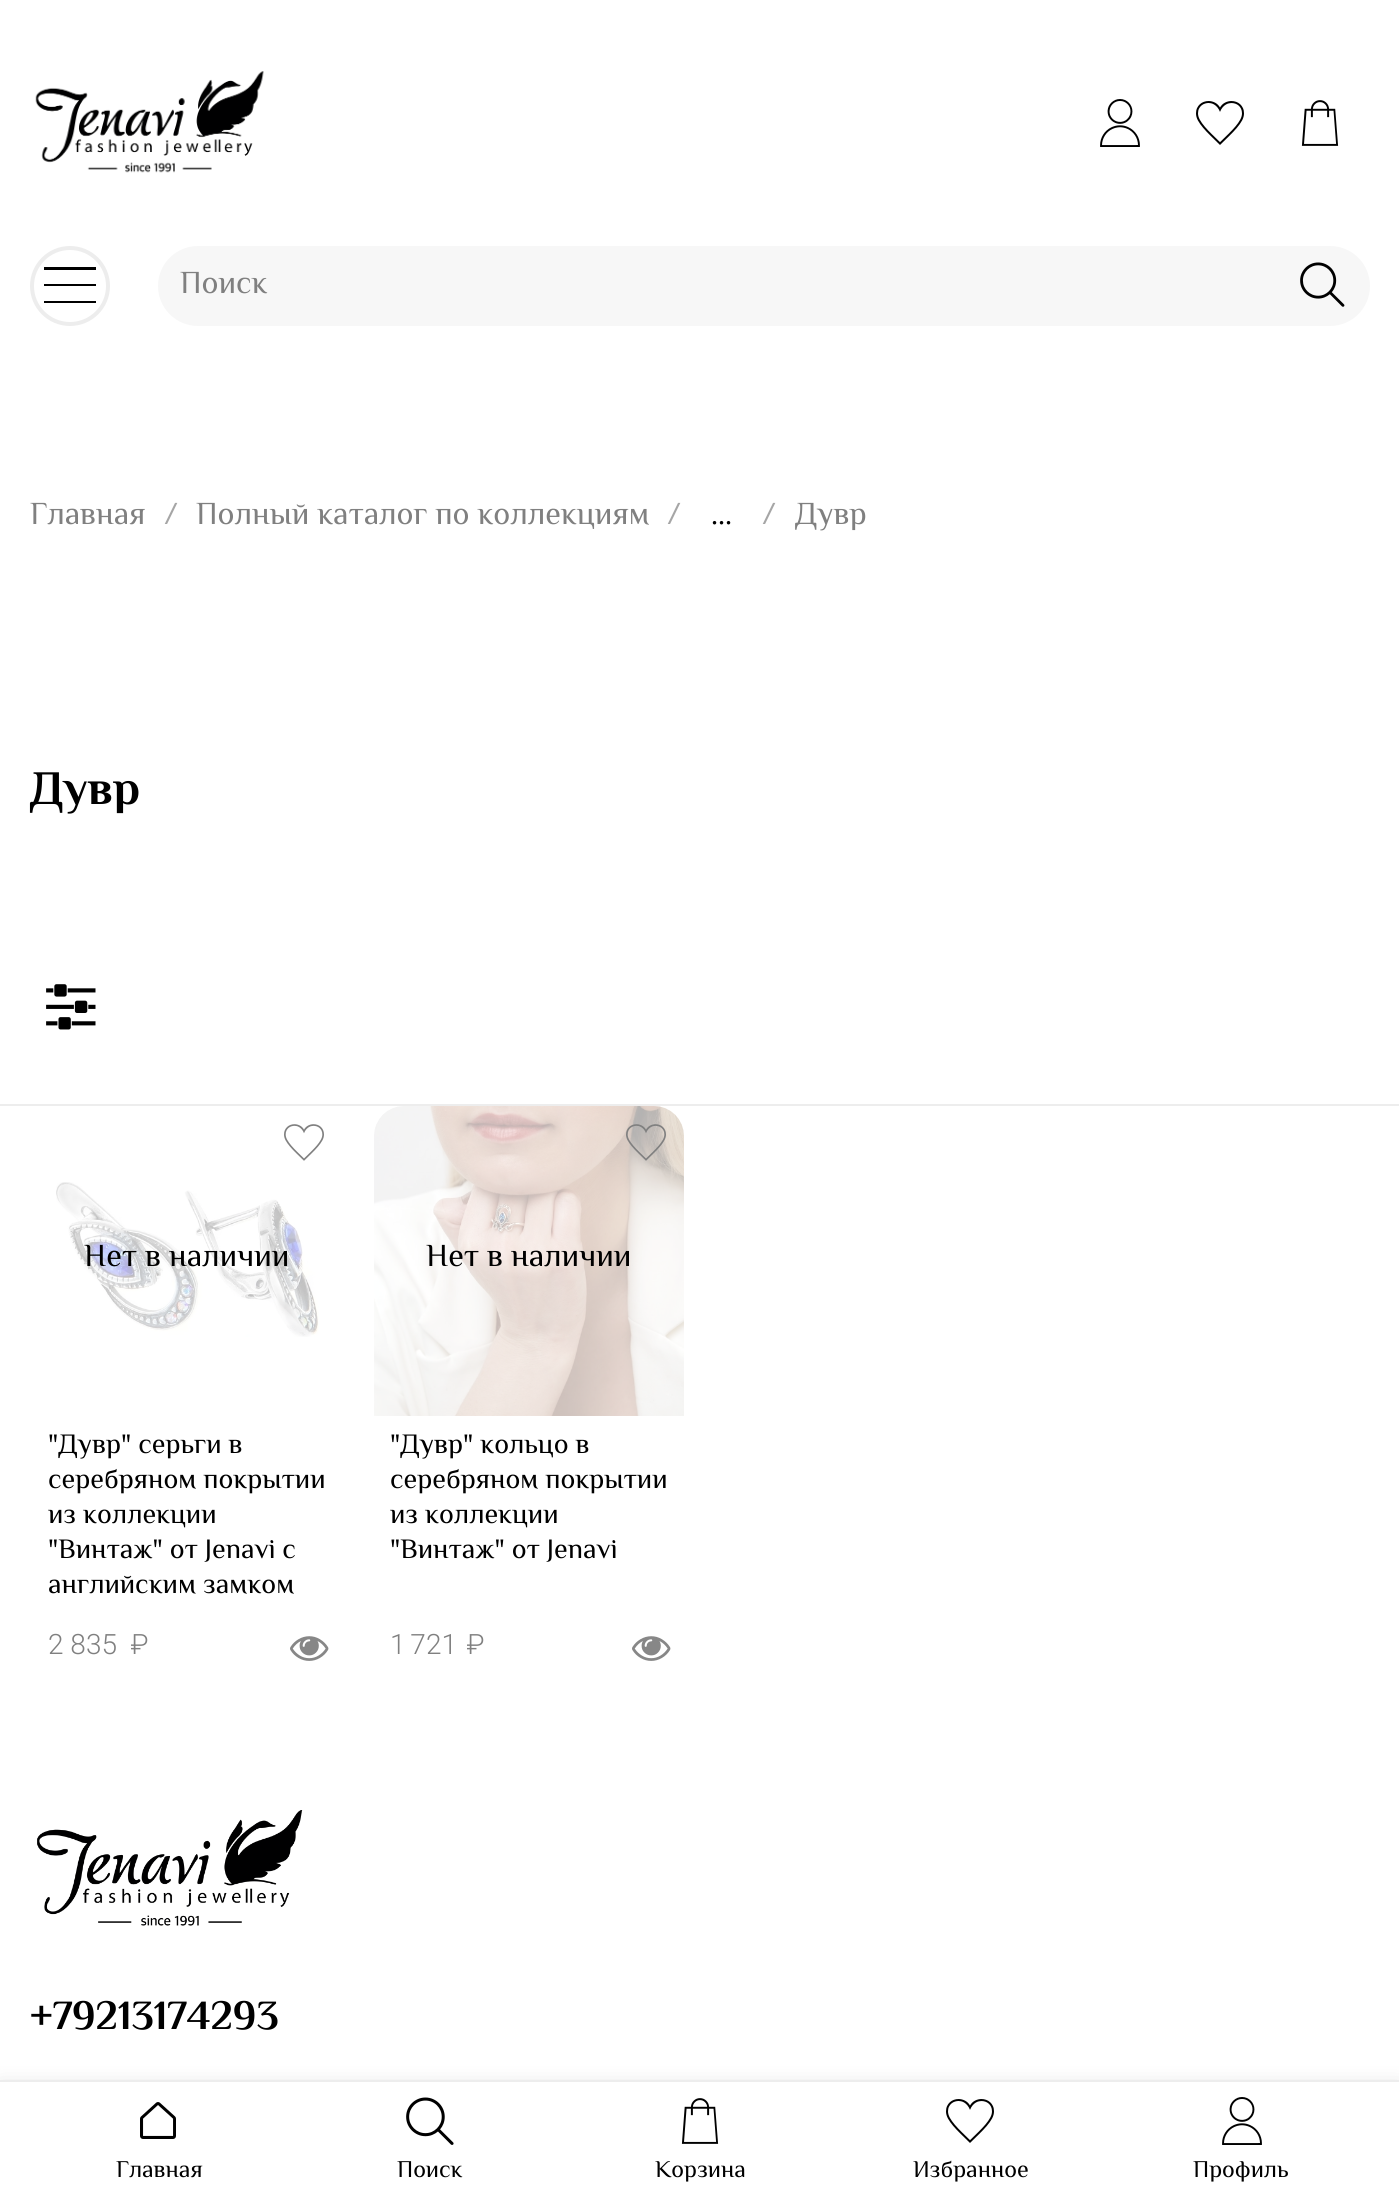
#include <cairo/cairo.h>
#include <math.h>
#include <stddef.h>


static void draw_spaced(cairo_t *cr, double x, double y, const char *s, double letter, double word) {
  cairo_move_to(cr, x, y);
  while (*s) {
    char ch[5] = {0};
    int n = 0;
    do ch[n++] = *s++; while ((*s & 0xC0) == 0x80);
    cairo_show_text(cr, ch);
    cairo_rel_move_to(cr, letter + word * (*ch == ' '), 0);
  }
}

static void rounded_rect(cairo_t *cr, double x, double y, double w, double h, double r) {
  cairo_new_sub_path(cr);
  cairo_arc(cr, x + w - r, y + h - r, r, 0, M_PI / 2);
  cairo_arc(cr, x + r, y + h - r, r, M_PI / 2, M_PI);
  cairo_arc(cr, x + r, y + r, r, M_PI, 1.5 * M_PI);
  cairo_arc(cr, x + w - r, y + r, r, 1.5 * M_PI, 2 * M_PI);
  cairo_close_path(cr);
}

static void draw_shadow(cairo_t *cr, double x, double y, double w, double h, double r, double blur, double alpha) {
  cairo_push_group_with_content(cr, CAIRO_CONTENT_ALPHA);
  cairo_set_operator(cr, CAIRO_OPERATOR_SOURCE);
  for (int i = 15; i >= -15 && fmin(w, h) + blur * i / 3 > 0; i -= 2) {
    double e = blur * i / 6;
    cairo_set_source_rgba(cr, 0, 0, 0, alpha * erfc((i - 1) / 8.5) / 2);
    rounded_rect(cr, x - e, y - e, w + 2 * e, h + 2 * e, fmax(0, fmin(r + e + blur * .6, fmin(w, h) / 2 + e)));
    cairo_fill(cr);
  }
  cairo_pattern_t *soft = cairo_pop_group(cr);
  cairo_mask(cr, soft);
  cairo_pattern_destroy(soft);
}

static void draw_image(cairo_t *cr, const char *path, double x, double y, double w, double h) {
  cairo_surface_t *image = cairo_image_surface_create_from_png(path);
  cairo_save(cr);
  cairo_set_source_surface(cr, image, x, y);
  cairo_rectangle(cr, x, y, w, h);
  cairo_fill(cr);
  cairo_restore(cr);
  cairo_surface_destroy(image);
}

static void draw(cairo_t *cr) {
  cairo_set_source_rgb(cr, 1, 1, 1);
  cairo_paint(cr);
  draw_image(cr, "images/1.png", 35, 71, 229, 102);
  draw_image(cr, "images/2.png", 1100, 99, 40, 48);
  draw_image(cr, "images/3.png", 1196, 101, 48, 44);
  draw_image(cr, "images/4.png", 1301, 100, 38, 46);
  cairo_arc(cr, 70, 286, 38, 0, 2 * M_PI);
  cairo_set_source_rgb(cr, 237 / 255.0, 237 / 255.0, 237 / 255.0);
  cairo_set_line_width(cr, 4);
  cairo_stroke(cr);
  cairo_set_source_rgb(cr, 0, 0, 0);
  cairo_new_path(cr);
  cairo_move_to(cr, 44, 267);
  cairo_line_to(cr, 96, 267);
  cairo_line_to(cr, 96, 270);
  cairo_line_to(cr, 44, 270);
  cairo_close_path(cr);
  cairo_move_to(cr, 44, 301);
  cairo_line_to(cr, 96, 301);
  cairo_line_to(cr, 96, 303);
  cairo_line_to(cr, 44, 303);
  cairo_close_path(cr);
  cairo_move_to(cr, 44, 284);
  cairo_line_to(cr, 96, 284);
  cairo_line_to(cr, 96, 286);
  cairo_line_to(cr, 44, 286);
  cairo_close_path(cr);
  cairo_fill(cr);
  cairo_set_source_rgb(cr, 247 / 255.0, 247 / 255.0, 247 / 255.0);
  rounded_rect(cr, 158, 246, 1212, 80, 40);
  cairo_fill(cr);
  draw_image(cr, "images/5.png", 1300, 262, 45, 45);
  draw_image(cr, "images/6.png", 46, 984, 50, 46);
  cairo_set_source_rgb(cr, 237 / 255.0, 237 / 255.0, 237 / 255.0);
  cairo_rectangle(cr, 0, 1104, 1399, 2);
  cairo_fill(cr);
  draw_image(cr, "images/7.png", 284, 1124, 40, 37);
  draw_image(cr, "images/8.png", 56, 1182, 263, 155);
  draw_image(cr, "images/9.png", 290, 1636, 39, 25);
  draw_image(cr, "images/10.png", 374, 1106, 310, 310);
  draw_image(cr, "images/11.png", 626, 1124, 40, 37);
  draw_image(cr, "images/9.png", 632, 1636, 39, 25);
  draw_image(cr, "images/12.png", 37, 1810, 266, 116);
  cairo_set_source_rgb(cr, 0, 0, 0);
  draw_shadow(cr, 0, 2084, 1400, 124, 0, 10, 0.12);
  cairo_set_source_rgb(cr, 1, 1, 1);
  cairo_rectangle(cr, 0, 2082, 1399, 122);
  cairo_fill(cr);
  cairo_set_source_rgb(cr, 237 / 255.0, 237 / 255.0, 237 / 255.0);
  cairo_rectangle(cr, 0, 2080, 1399, 2);
  cairo_fill(cr);
  draw_image(cr, "images/13.png", 140, 2102, 36, 37);
  draw_image(cr, "images/14.png", 406, 2097, 48, 48);
  draw_image(cr, "images/4.png", 681, 2098, 38, 46);
  draw_image(cr, "images/3.png", 946, 2099, 48, 44);
  draw_image(cr, "images/2.png", 1222, 2097, 40, 48);
  cairo_select_font_face(cr, "El Messiri", CAIRO_FONT_SLANT_NORMAL, CAIRO_FONT_WEIGHT_NORMAL);
  cairo_set_font_size(cr, 32);
  cairo_set_source_rgb(cr, 128 / 255.0, 128 / 255.0, 128 / 255.0);
  cairo_move_to(cr, 180, 293);
  cairo_show_text(cr, "Поиск");
  cairo_move_to(cr, 30, 524);
  cairo_show_text(cr, "Главная");
  cairo_set_source_rgb(cr, 166 / 255.0, 166 / 255.0, 166 / 255.0);
  cairo_move_to(cr, 164, 524);
  cairo_show_text(cr, "/");
  cairo_set_source_rgb(cr, 128 / 255.0, 128 / 255.0, 128 / 255.0);
  cairo_move_to(cr, 196, 524);
  cairo_show_text(cr, "Полный каталог по коллекциям");
  cairo_set_source_rgb(cr, 166 / 255.0, 166 / 255.0, 166 / 255.0);
  cairo_move_to(cr, 667, 524);
  cairo_show_text(cr, "/");
  cairo_set_source_rgb(cr, 0, 0, 0);
  cairo_move_to(cr, 711, 524);
  cairo_show_text(cr, "...");
  cairo_set_source_rgb(cr, 166 / 255.0, 166 / 255.0, 166 / 255.0);
  cairo_move_to(cr, 762, 524);
  cairo_show_text(cr, "/");
  cairo_set_source_rgb(cr, 128 / 255.0, 128 / 255.0, 128 / 255.0);
  cairo_move_to(cr, 795, 524);
  cairo_show_text(cr, "Дувр");
  cairo_select_font_face(cr, "El Messiri", CAIRO_FONT_SLANT_NORMAL, CAIRO_FONT_WEIGHT_BOLD);
  cairo_set_font_size(cr, 48);
  cairo_set_source_rgb(cr, 0, 0, 0);
  cairo_move_to(cr, 30, 804);
  cairo_show_text(cr, "Дувр");
  cairo_select_font_face(cr, "El Messiri", CAIRO_FONT_SLANT_NORMAL, CAIRO_FONT_WEIGHT_NORMAL);
  cairo_set_font_size(cr, 32);
  cairo_move_to(cr, 84, 1266);
  cairo_show_text(cr, "Нет в наличии");
  cairo_set_font_size(cr, 28);
  cairo_move_to(cr, 48, 1453);
  cairo_show_text(cr, "\"Дувр\" серьги в");
  cairo_move_to(cr, 48, 1488);
  cairo_show_text(cr, "серебряном покрытии");
  cairo_move_to(cr, 48, 1523);
  cairo_show_text(cr, "из коллекции");
  cairo_move_to(cr, 48, 1558);
  cairo_show_text(cr, "\"Винтаж\" от Jenavi с");
  cairo_move_to(cr, 48, 1593);
  cairo_show_text(cr, "английским замком");
  cairo_select_font_face(cr, "Roboto Light", CAIRO_FONT_SLANT_NORMAL, CAIRO_FONT_WEIGHT_NORMAL);
  cairo_set_source_rgb(cr, 128 / 255.0, 128 / 255.0, 128 / 255.0);
  cairo_move_to(cr, 48, 1654);
  cairo_show_text(cr, "2 835  ₽");
  cairo_select_font_face(cr, "El Messiri", CAIRO_FONT_SLANT_NORMAL, CAIRO_FONT_WEIGHT_NORMAL);
  cairo_set_font_size(cr, 32);
  cairo_set_source_rgb(cr, 0, 0, 0);
  cairo_move_to(cr, 426, 1266);
  cairo_show_text(cr, "Нет в наличии");
  cairo_set_font_size(cr, 28);
  cairo_move_to(cr, 390, 1453);
  cairo_show_text(cr, "\"Дувр\" кольцо в");
  cairo_move_to(cr, 390, 1488);
  cairo_show_text(cr, "серебряном покрытии");
  cairo_move_to(cr, 390, 1523);
  cairo_show_text(cr, "из коллекции");
  cairo_move_to(cr, 390, 1558);
  cairo_show_text(cr, "\"Винтаж\" от Jenavi");
  cairo_select_font_face(cr, "Roboto Light", CAIRO_FONT_SLANT_NORMAL, CAIRO_FONT_WEIGHT_NORMAL);
  cairo_set_source_rgb(cr, 128 / 255.0, 128 / 255.0, 128 / 255.0);
  draw_spaced(cr, 390, 1654, "1 721  ₽", 0, -2);
  cairo_select_font_face(cr, "El Messiri", CAIRO_FONT_SLANT_NORMAL, CAIRO_FONT_WEIGHT_BOLD);
  cairo_set_font_size(cr, 41.5);
  cairo_set_source_rgb(cr, 0, 0, 0);
  cairo_move_to(cr, 30, 2029);
  cairo_show_text(cr, "+79213174293");
  cairo_select_font_face(cr, "El Messiri", CAIRO_FONT_SLANT_NORMAL, CAIRO_FONT_WEIGHT_NORMAL);
  cairo_set_font_size(cr, 24);
  cairo_move_to(cr, 116, 2177);
  cairo_show_text(cr, "Главная");
  cairo_move_to(cr, 397, 2177);
  cairo_show_text(cr, "Поиск");
  cairo_move_to(cr, 655, 2177);
  cairo_show_text(cr, "Корзина");
  cairo_move_to(cr, 913, 2177);
  cairo_show_text(cr, "Избранное");
  cairo_move_to(cr, 1193, 2177);
  cairo_show_text(cr, "Профиль");
}

int main(void) {
  cairo_surface_t *surface = cairo_image_surface_create(CAIRO_FORMAT_RGB24, 1399, 2204);
  cairo_t *cr = cairo_create(surface);
  cairo_font_options_t *options = cairo_font_options_create();
  cairo_font_options_set_hint_metrics(options, CAIRO_HINT_METRICS_OFF);
  cairo_font_options_set_hint_style(options, CAIRO_HINT_STYLE_NONE);
  cairo_set_font_options(cr, options);
  cairo_set_miter_limit(cr, 4);
  draw(cr);
  cairo_surface_write_to_png(surface, "out.png");
  cairo_font_options_destroy(options);
  cairo_destroy(cr);
  cairo_surface_destroy(surface);
  return 0;
}
